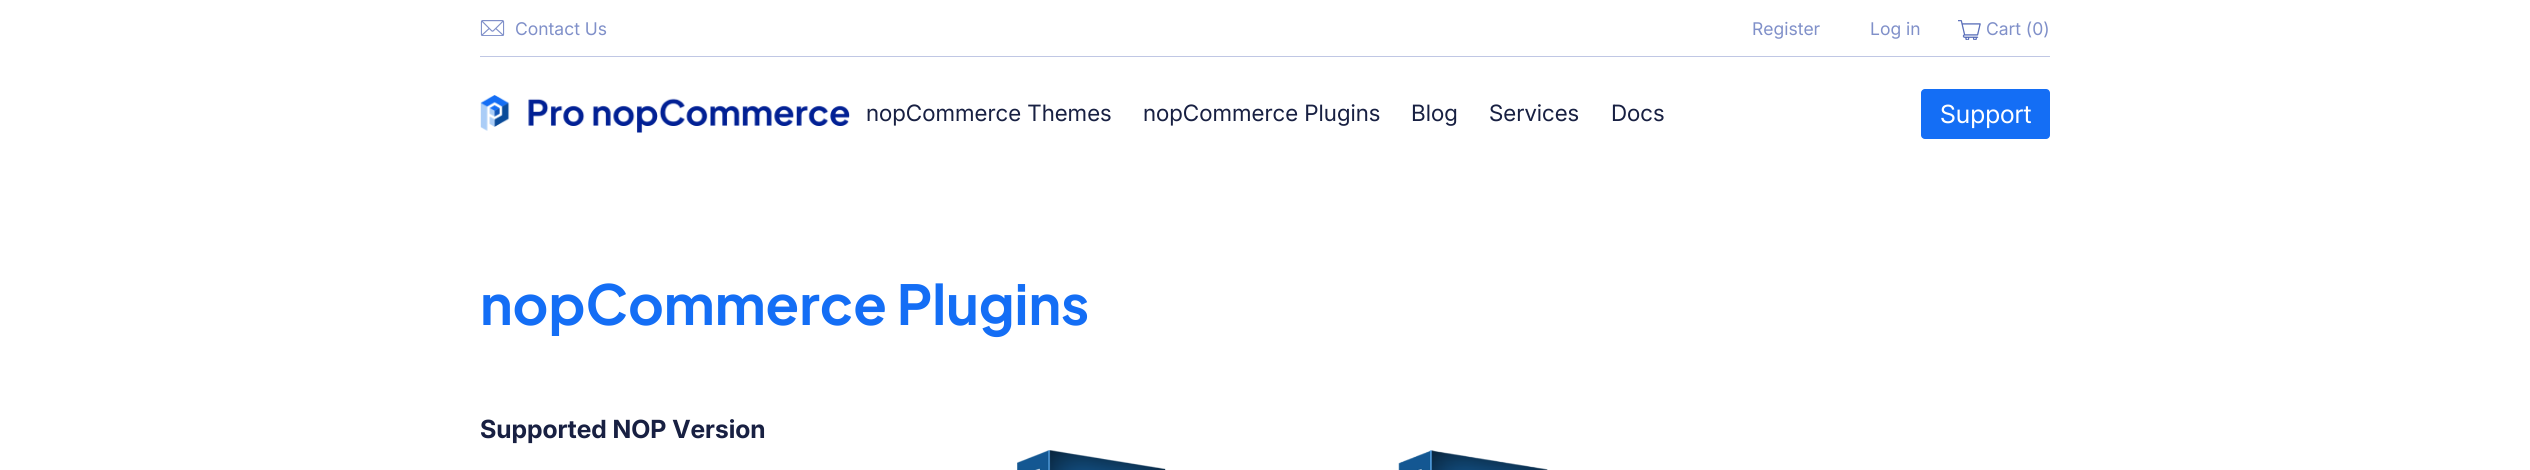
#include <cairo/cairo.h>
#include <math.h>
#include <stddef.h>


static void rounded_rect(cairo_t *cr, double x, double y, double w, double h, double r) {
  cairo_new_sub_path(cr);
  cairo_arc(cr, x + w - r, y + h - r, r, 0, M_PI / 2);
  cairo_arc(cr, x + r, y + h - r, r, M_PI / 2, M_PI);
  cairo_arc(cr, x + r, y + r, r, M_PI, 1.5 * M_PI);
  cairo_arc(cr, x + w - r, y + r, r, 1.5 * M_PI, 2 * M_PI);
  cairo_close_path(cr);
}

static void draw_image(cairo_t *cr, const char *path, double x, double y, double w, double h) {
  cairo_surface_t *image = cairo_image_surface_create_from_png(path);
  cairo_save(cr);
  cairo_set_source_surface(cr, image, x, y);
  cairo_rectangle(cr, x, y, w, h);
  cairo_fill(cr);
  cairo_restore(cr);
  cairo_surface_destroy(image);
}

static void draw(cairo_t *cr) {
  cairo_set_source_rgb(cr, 1, 1, 1);
  cairo_paint(cr);
  cairo_set_source_rgb(cr, 192 / 255.0, 199 / 255.0, 228 / 255.0);
  cairo_rectangle(cr, 480, 56, 1570, 1);
  cairo_fill(cr);
  draw_image(cr, "images/1.png", 480, 20, 25, 16);
  draw_image(cr, "images/2.png", 1958, 20, 23, 20);
  draw_image(cr, "images/3.png", 480, 95, 370, 38);
  cairo_set_source_rgb(cr, 20 / 255.0, 110 / 255.0, 245 / 255.0);
  rounded_rect(cr, 1921, 89, 129, 50, 4);
  cairo_fill(cr);
  draw_image(cr, "images/4.png", 1017, 450, 149, 20);
  draw_image(cr, "images/5.png", 1398, 450, 150, 20);
  cairo_select_font_face(cr, "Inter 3", CAIRO_FONT_SLANT_NORMAL, CAIRO_FONT_WEIGHT_NORMAL);
  cairo_set_font_size(cr, 17.5);
  cairo_set_source_rgb(cr, 128 / 255.0, 144 / 255.0, 201 / 255.0);
  cairo_move_to(cr, 515, 35);
  cairo_show_text(cr, "Contact Us");
  cairo_move_to(cr, 1752, 35);
  cairo_show_text(cr, "Register");
  cairo_move_to(cr, 1870, 35);
  cairo_show_text(cr, "Log in");
  cairo_move_to(cr, 1986, 35);
  cairo_show_text(cr, "Cart (0)");
  cairo_select_font_face(cr, "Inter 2", CAIRO_FONT_SLANT_NORMAL, CAIRO_FONT_WEIGHT_NORMAL);
  cairo_set_font_size(cr, 22.5);
  cairo_set_source_rgb(cr, 24 / 255.0, 32 / 255.0, 66 / 255.0);
  cairo_move_to(cr, 866, 121);
  cairo_show_text(cr, "nopCommerce Themes");
  cairo_move_to(cr, 1143, 121);
  cairo_show_text(cr, "nopCommerce Plugins");
  cairo_move_to(cr, 1411, 121);
  cairo_show_text(cr, "Blog");
  cairo_move_to(cr, 1489, 121);
  cairo_show_text(cr, "Services");
  cairo_move_to(cr, 1611, 121);
  cairo_show_text(cr, "Docs");
  cairo_select_font_face(cr, "Inter", CAIRO_FONT_SLANT_NORMAL, CAIRO_FONT_WEIGHT_NORMAL);
  cairo_set_font_size(cr, 25);
  cairo_set_source_rgb(cr, 1, 1, 1);
  cairo_move_to(cr, 1940, 123);
  cairo_show_text(cr, "Support");
  cairo_select_font_face(cr, "Plus Jakarta Sans", CAIRO_FONT_SLANT_NORMAL, CAIRO_FONT_WEIGHT_BOLD);
  cairo_set_font_size(cr, 55);
  cairo_set_source_rgb(cr, 20 / 255.0, 110 / 255.0, 245 / 255.0);
  cairo_move_to(cr, 480, 325);
  cairo_show_text(cr, "nopCommerce Plugins");
  cairo_select_font_face(cr, "Inter", CAIRO_FONT_SLANT_NORMAL, CAIRO_FONT_WEIGHT_BOLD);
  cairo_set_font_size(cr, 25);
  cairo_set_source_rgb(cr, 24 / 255.0, 32 / 255.0, 66 / 255.0);
  cairo_move_to(cr, 480, 438);
  cairo_show_text(cr, "Supported NOP Version");
}

int main(void) {
  cairo_surface_t *surface = cairo_image_surface_create(CAIRO_FORMAT_RGB24, 2530, 470);
  cairo_t *cr = cairo_create(surface);
  cairo_font_options_t *options = cairo_font_options_create();
  cairo_font_options_set_hint_metrics(options, CAIRO_HINT_METRICS_OFF);
  cairo_font_options_set_hint_style(options, CAIRO_HINT_STYLE_NONE);
  cairo_set_font_options(cr, options);
  cairo_set_miter_limit(cr, 4);
  draw(cr);
  cairo_surface_write_to_png(surface, "out.png");
  cairo_font_options_destroy(options);
  cairo_destroy(cr);
  cairo_surface_destroy(surface);
  return 0;
}
